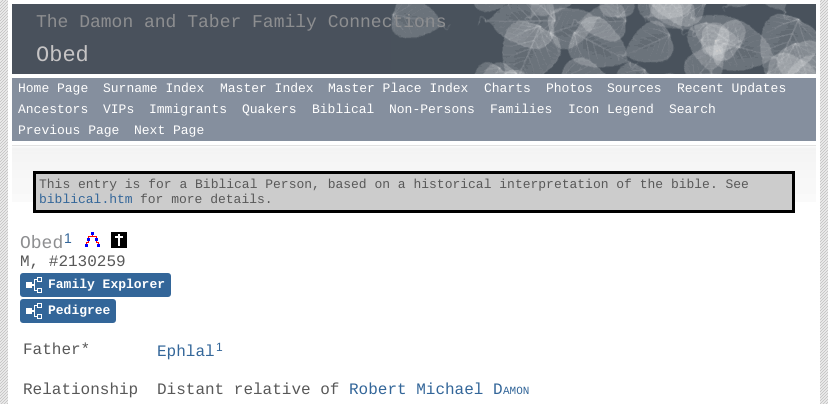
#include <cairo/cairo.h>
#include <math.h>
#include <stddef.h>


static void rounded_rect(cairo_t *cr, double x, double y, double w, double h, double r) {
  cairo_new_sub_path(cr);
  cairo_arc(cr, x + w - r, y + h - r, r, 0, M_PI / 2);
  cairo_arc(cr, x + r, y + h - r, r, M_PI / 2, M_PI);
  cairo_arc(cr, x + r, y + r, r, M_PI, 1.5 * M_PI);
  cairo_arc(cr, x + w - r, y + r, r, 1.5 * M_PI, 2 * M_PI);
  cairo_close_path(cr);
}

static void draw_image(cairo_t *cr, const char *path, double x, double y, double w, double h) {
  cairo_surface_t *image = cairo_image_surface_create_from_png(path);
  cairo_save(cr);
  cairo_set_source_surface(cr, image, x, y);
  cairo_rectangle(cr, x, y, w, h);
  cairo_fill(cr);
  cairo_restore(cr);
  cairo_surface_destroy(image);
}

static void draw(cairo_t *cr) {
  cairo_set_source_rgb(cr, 1, 1, 1);
  cairo_paint(cr);
  draw_image(cr, "images/1.png", 0, 0, 828, 404);
  cairo_set_source_rgb(cr, 1, 1, 1);
  cairo_rectangle(cr, 8, 0, 812, 404);
  cairo_fill(cr);
  cairo_set_source_rgb(cr, 73 / 255.0, 81 / 255.0, 92 / 255.0);
  cairo_rectangle(cr, 12, 4, 379, 70);
  cairo_fill(cr);
  draw_image(cr, "images/2.png", 391, 4, 425, 70);
  cairo_set_source_rgb(cr, 133 / 255.0, 143 / 255.0, 158 / 255.0);
  cairo_rectangle(cr, 12, 78, 804, 63);
  cairo_fill(cr);
  draw_image(cr, "images/3.png", 12, 146, 804, 56);
  cairo_set_source_rgb(cr, 225 / 255.0, 225 / 255.0, 225 / 255.0);
  cairo_rectangle(cr, 12, 145, 804, 1);
  cairo_fill(cr);
  cairo_set_source_rgb(cr, 204 / 255.0, 204 / 255.0, 204 / 255.0);
  cairo_rectangle(cr, 34.5, 172.5, 759, 39);
  cairo_fill_preserve(cr);
  cairo_set_source_rgb(cr, 0, 0, 0);
  cairo_set_line_width(cr, 3);
  cairo_stroke(cr);
  draw_image(cr, "images/4.png", 85, 232, 15, 15);
  draw_image(cr, "images/5.png", 111, 232, 16, 16);
  cairo_set_source_rgb(cr, 51 / 255.0, 102 / 255.0, 153 / 255.0);
  rounded_rect(cr, 20, 273, 151, 24, 3);
  cairo_fill(cr);
  draw_image(cr, "images/6.png", 26, 277, 16, 16);
  rounded_rect(cr, 20, 299, 96, 24, 3);
  cairo_fill(cr);
  draw_image(cr, "images/6.png", 26, 303, 16, 16);
  cairo_select_font_face(cr, "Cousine", CAIRO_FONT_SLANT_NORMAL, CAIRO_FONT_WEIGHT_NORMAL);
  cairo_set_font_size(cr, 18);
  cairo_set_source_rgb(cr, 141 / 255.0, 142 / 255.0, 144 / 255.0);
  cairo_move_to(cr, 36, 27);
  cairo_show_text(cr, "The Damon and Taber Family Connections");
  cairo_set_font_size(cr, 22);
  cairo_set_source_rgb(cr, 198 / 255.0, 196 / 255.0, 197 / 255.0);
  cairo_move_to(cr, 36, 61);
  cairo_show_text(cr, "Obed");
  cairo_set_font_size(cr, 13);
  cairo_set_source_rgb(cr, 1, 1, 1);
  cairo_move_to(cr, 18, 92);
  cairo_show_text(cr, "Home Page");
  cairo_move_to(cr, 103, 92);
  cairo_show_text(cr, "Surname Index");
  cairo_move_to(cr, 220, 92);
  cairo_show_text(cr, "Master Index");
  cairo_move_to(cr, 328, 92);
  cairo_show_text(cr, "Master Place Index");
  cairo_move_to(cr, 484, 92);
  cairo_show_text(cr, "Charts");
  cairo_move_to(cr, 546, 92);
  cairo_show_text(cr, "Photos");
  cairo_move_to(cr, 607, 92);
  cairo_show_text(cr, "Sources");
  cairo_move_to(cr, 677, 92);
  cairo_show_text(cr, "Recent Updates");
  cairo_move_to(cr, 18, 113);
  cairo_show_text(cr, "Ancestors");
  cairo_move_to(cr, 103, 113);
  cairo_show_text(cr, "VIPs");
  cairo_move_to(cr, 149, 113);
  cairo_show_text(cr, "Immigrants");
  cairo_move_to(cr, 242, 113);
  cairo_show_text(cr, "Quakers");
  cairo_move_to(cr, 312, 113);
  cairo_show_text(cr, "Biblical");
  cairo_move_to(cr, 389, 113);
  cairo_show_text(cr, "Non-Persons");
  cairo_move_to(cr, 490, 113);
  cairo_show_text(cr, "Families");
  cairo_move_to(cr, 568, 113);
  cairo_show_text(cr, "Icon Legend");
  cairo_move_to(cr, 669, 113);
  cairo_show_text(cr, "Search");
  cairo_move_to(cr, 18, 134);
  cairo_show_text(cr, "Previous Page");
  cairo_move_to(cr, 134, 134);
  cairo_show_text(cr, "Next Page");
  cairo_set_source_rgb(cr, 88 / 255.0, 88 / 255.0, 88 / 255.0);
  cairo_move_to(cr, 39, 188);
  cairo_show_text(cr, "This entry is for a Biblical Person, based on a historical interpretation of the bible. See");
  cairo_set_source_rgb(cr, 51 / 255.0, 102 / 255.0, 153 / 255.0);
  cairo_move_to(cr, 39, 203);
  cairo_show_text(cr, "biblical.htm");
  cairo_set_source_rgb(cr, 88 / 255.0, 88 / 255.0, 88 / 255.0);
  cairo_move_to(cr, 140, 203);
  cairo_show_text(cr, "for more details.");
  cairo_set_font_size(cr, 18);
  cairo_set_source_rgb(cr, 141 / 255.0, 142 / 255.0, 144 / 255.0);
  cairo_move_to(cr, 20, 248);
  cairo_show_text(cr, "Obed");
  cairo_select_font_face(cr, "Liberation Sans", CAIRO_FONT_SLANT_NORMAL, CAIRO_FONT_WEIGHT_NORMAL);
  cairo_set_font_size(cr, 14);
  cairo_set_source_rgb(cr, 51 / 255.0, 102 / 255.0, 153 / 255.0);
  cairo_move_to(cr, 64, 243);
  cairo_show_text(cr, "1");
  cairo_select_font_face(cr, "Cousine", CAIRO_FONT_SLANT_NORMAL, CAIRO_FONT_WEIGHT_NORMAL);
  cairo_set_font_size(cr, 16);
  cairo_set_source_rgb(cr, 88 / 255.0, 88 / 255.0, 88 / 255.0);
  cairo_move_to(cr, 20, 266);
  cairo_show_text(cr, "M, #2130259");
  cairo_select_font_face(cr, "Cousine", CAIRO_FONT_SLANT_NORMAL, CAIRO_FONT_WEIGHT_BOLD);
  cairo_set_font_size(cr, 13);
  cairo_set_source_rgb(cr, 1, 1, 1);
  cairo_move_to(cr, 48, 288);
  cairo_show_text(cr, "Family Explorer");
  cairo_move_to(cr, 48, 314);
  cairo_show_text(cr, "Pedigree");
  cairo_select_font_face(cr, "Cousine", CAIRO_FONT_SLANT_NORMAL, CAIRO_FONT_WEIGHT_NORMAL);
  cairo_set_font_size(cr, 16);
  cairo_set_source_rgb(cr, 88 / 255.0, 88 / 255.0, 88 / 255.0);
  cairo_move_to(cr, 23, 354);
  cairo_show_text(cr, "Father*");
  cairo_set_source_rgb(cr, 51 / 255.0, 102 / 255.0, 153 / 255.0);
  cairo_move_to(cr, 157, 356);
  cairo_show_text(cr, "Ephlal");
  cairo_select_font_face(cr, "Liberation Sans", CAIRO_FONT_SLANT_NORMAL, CAIRO_FONT_WEIGHT_NORMAL);
  cairo_set_font_size(cr, 12);
  cairo_move_to(cr, 216, 351);
  cairo_show_text(cr, "1");
  cairo_select_font_face(cr, "Cousine", CAIRO_FONT_SLANT_NORMAL, CAIRO_FONT_WEIGHT_NORMAL);
  cairo_set_font_size(cr, 16);
  cairo_set_source_rgb(cr, 88 / 255.0, 88 / 255.0, 88 / 255.0);
  cairo_move_to(cr, 23, 394);
  cairo_show_text(cr, "Relationship");
  cairo_move_to(cr, 157, 394);
  cairo_show_text(cr, "Distant relative of");
  cairo_set_source_rgb(cr, 51 / 255.0, 102 / 255.0, 153 / 255.0);
  cairo_move_to(cr, 349, 394);
  cairo_show_text(cr, "Robert Michael D");
  cairo_set_font_size(cr, 11);
  cairo_move_to(cr, 503, 394);
  cairo_show_text(cr, "AMON");
}

int main(void) {
  cairo_surface_t *surface = cairo_image_surface_create(CAIRO_FORMAT_RGB24, 828, 404);
  cairo_t *cr = cairo_create(surface);
  cairo_font_options_t *options = cairo_font_options_create();
  cairo_font_options_set_hint_metrics(options, CAIRO_HINT_METRICS_OFF);
  cairo_font_options_set_hint_style(options, CAIRO_HINT_STYLE_NONE);
  cairo_set_font_options(cr, options);
  cairo_set_miter_limit(cr, 4);
  draw(cr);
  cairo_surface_write_to_png(surface, "out.png");
  cairo_font_options_destroy(options);
  cairo_destroy(cr);
  cairo_surface_destroy(surface);
  return 0;
}
